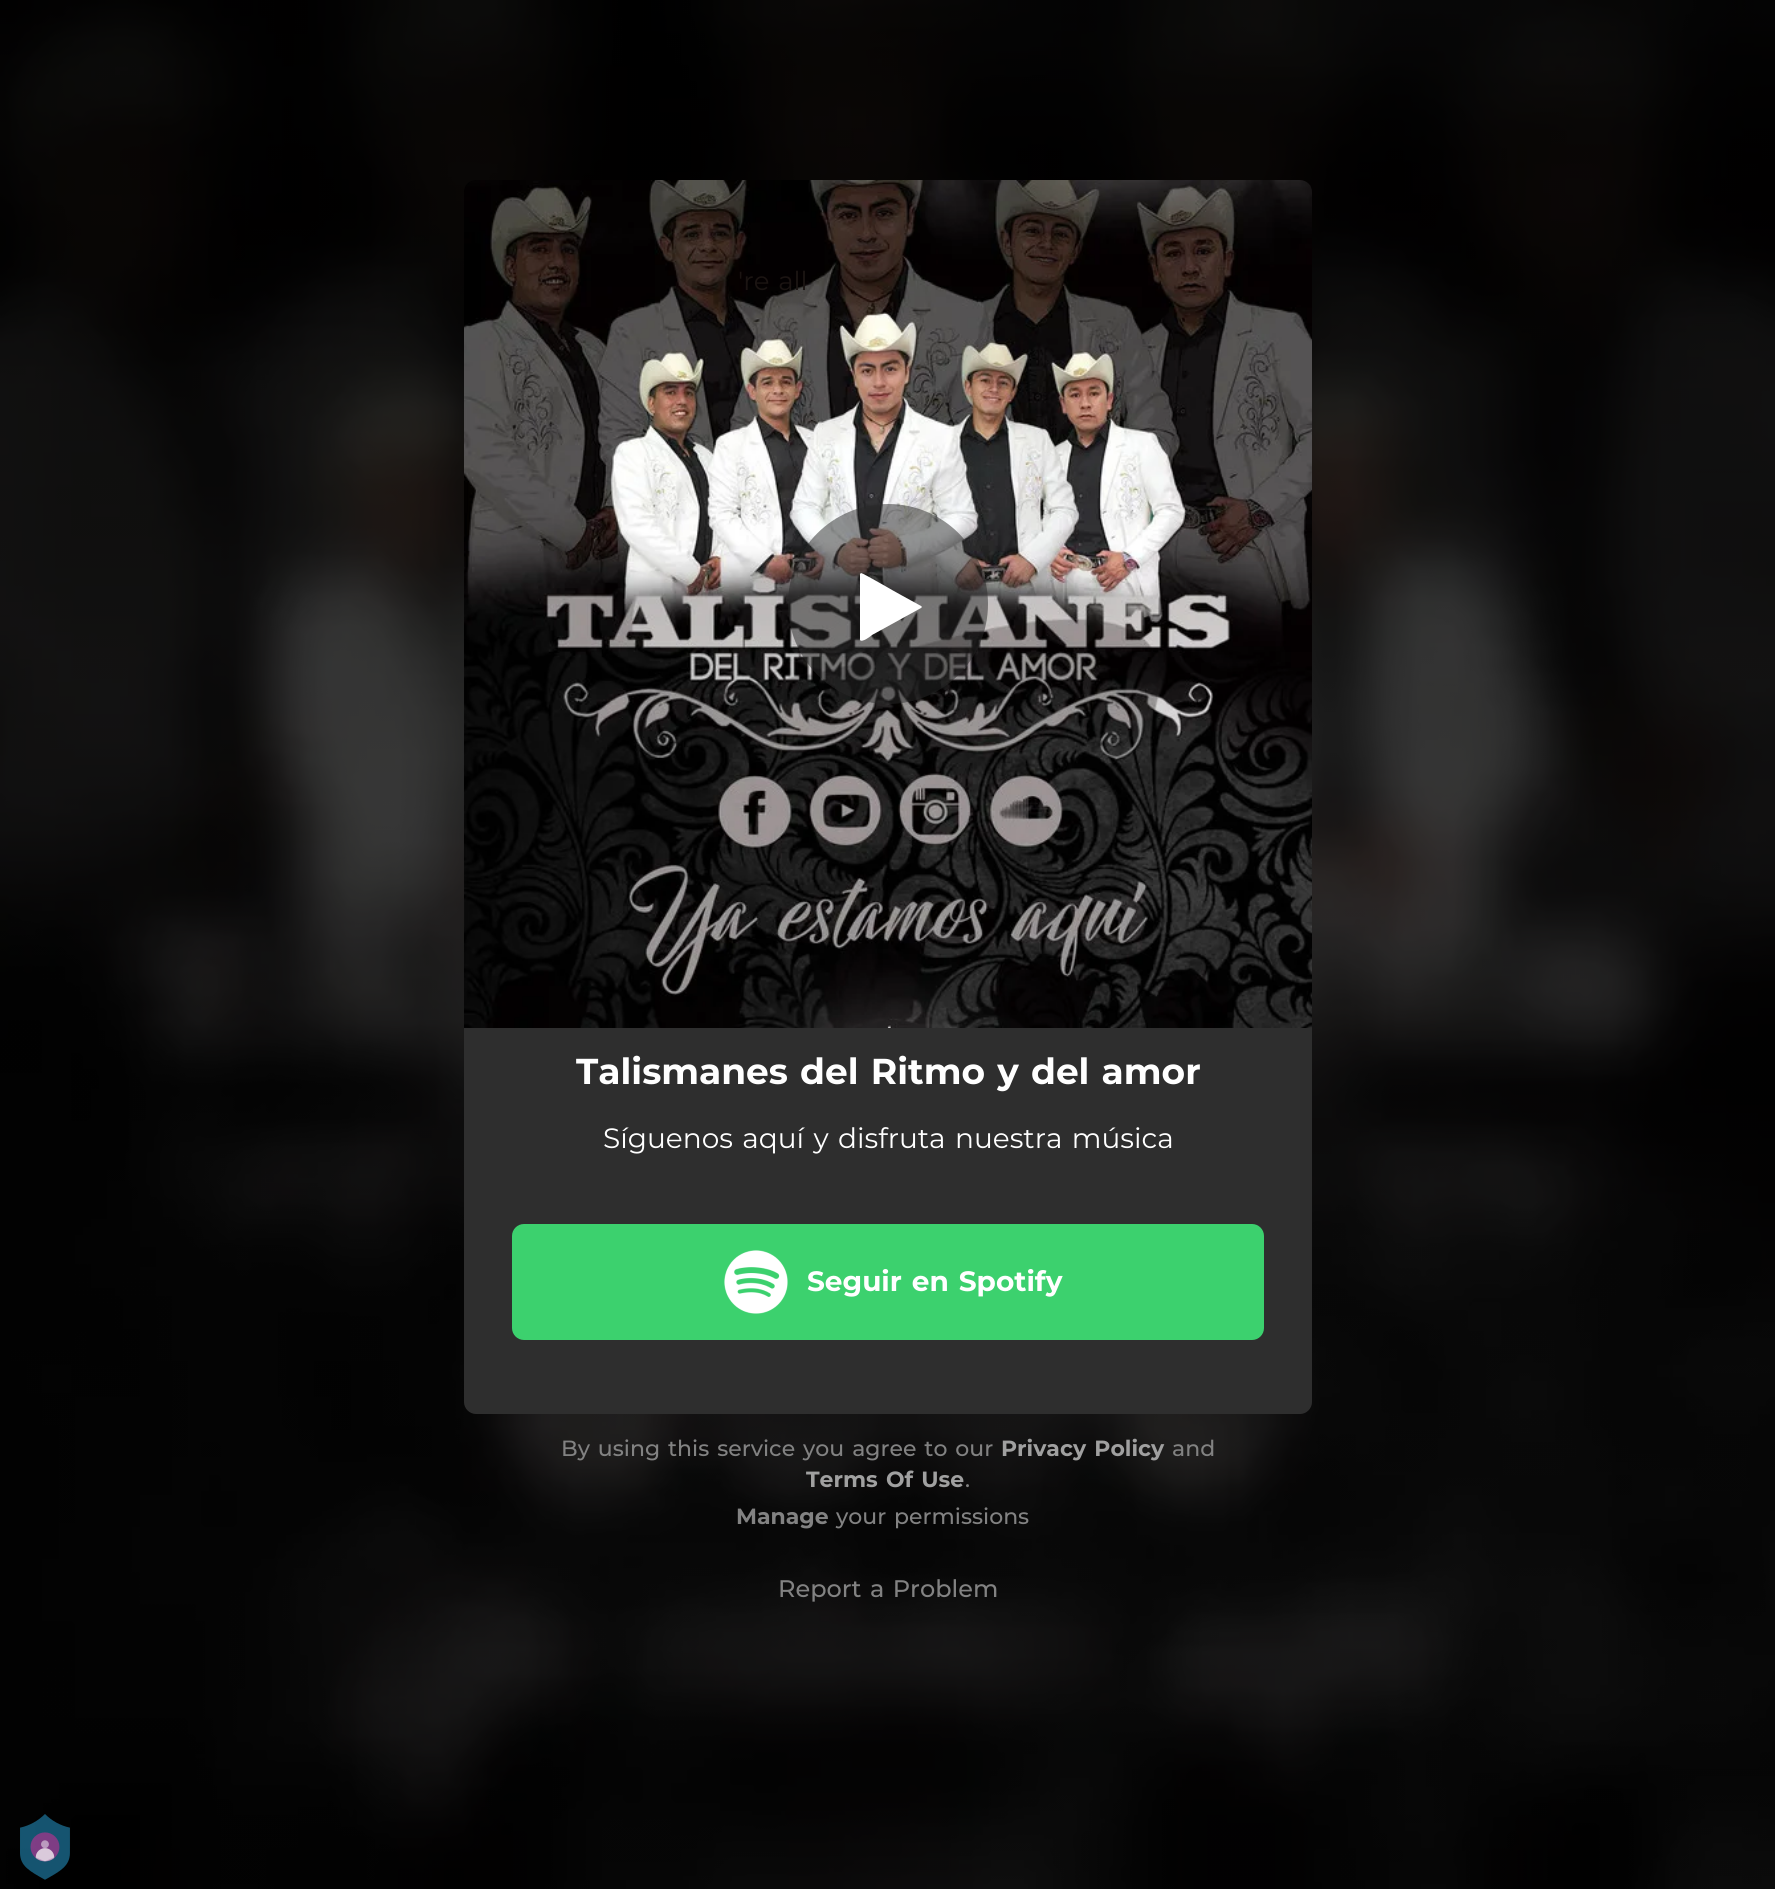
#include <cairo/cairo.h>
#include <math.h>
#include <stddef.h>


static void draw_spaced(cairo_t *cr, double x, double y, const char *s, double letter, double word) {
  cairo_move_to(cr, x, y);
  while (*s) {
    char ch[5] = {0};
    int n = 0;
    do ch[n++] = *s++; while ((*s & 0xC0) == 0x80);
    cairo_show_text(cr, ch);
    cairo_rel_move_to(cr, letter + word * (*ch == ' '), 0);
  }
}

static void rounded_rect(cairo_t *cr, double x, double y, double w, double h, double r) {
  cairo_new_sub_path(cr);
  cairo_arc(cr, x + w - r, y + h - r, r, 0, M_PI / 2);
  cairo_arc(cr, x + r, y + h - r, r, M_PI / 2, M_PI);
  cairo_arc(cr, x + r, y + r, r, M_PI, 1.5 * M_PI);
  cairo_arc(cr, x + w - r, y + r, r, 1.5 * M_PI, 2 * M_PI);
  cairo_close_path(cr);
}

static void draw_image(cairo_t *cr, const char *path, double x, double y, double w, double h) {
  cairo_surface_t *image = cairo_image_surface_create_from_png(path);
  cairo_save(cr);
  cairo_set_source_surface(cr, image, x, y);
  cairo_rectangle(cr, x, y, w, h);
  cairo_fill(cr);
  cairo_restore(cr);
  cairo_surface_destroy(image);
}

static void draw(cairo_t *cr) {
  cairo_set_source_rgb(cr, 1, 1, 1);
  cairo_paint(cr);
  draw_image(cr, "images/1.png", 0, 0, 1775, 1889);
  draw_image(cr, "images/2.png", 464, 180, 848, 848);
  cairo_set_source_rgba(cr, 40 / 255.0, 40 / 255.0, 40 / 255.0, 0.5);
  cairo_arc(cr, 888, 604, 100, 0, 2 * M_PI);
  cairo_fill(cr);
  cairo_set_source_rgb(cr, 1, 1, 1);
  cairo_new_path(cr);
  cairo_move_to(cr, 921, 608);
  cairo_line_to(cr, 872, 635);
  cairo_curve_to(cr, 871, 636, 862, 643, 860, 640);
  cairo_line_to(cr, 860, 574);
  cairo_line_to(cr, 861, 573);
  cairo_curve_to(cr, 863, 573, 897, 593, 901, 595);
  cairo_line_to(cr, 921, 606);
  cairo_line_to(cr, 922, 607);
  cairo_line_to(cr, 921, 608);
  cairo_fill(cr);
  cairo_set_source_rgb(cr, 46 / 255.0, 46 / 255.0, 46 / 255.0);
  cairo_new_path(cr);
  cairo_move_to(cr, 464, 1028);
  cairo_line_to(cr, 1312, 1028);
  cairo_line_to(cr, 1312, 1402);
  cairo_curve_to(cr, 1312, 1408.5, 1306.5, 1414, 1300, 1414);
  cairo_line_to(cr, 476, 1414);
  cairo_curve_to(cr, 469.5, 1414, 464, 1408.5, 464, 1402);
  cairo_close_path(cr);
  cairo_fill(cr);
  cairo_set_source_rgb(cr, 60 / 255.0, 209 / 255.0, 110 / 255.0);
  rounded_rect(cr, 512, 1224, 752, 116, 12);
  cairo_fill(cr);
  draw_image(cr, "images/3.png", 724, 1250, 64, 64);
  draw_image(cr, "images/4.png", 20, 1814, 50, 66);
  cairo_select_font_face(cr, "Montserrat", CAIRO_FONT_SLANT_NORMAL, CAIRO_FONT_WEIGHT_NORMAL);
  cairo_set_font_size(cr, 26);
  cairo_set_source_rgb(cr, 27 / 255.0, 20 / 255.0, 18 / 255.0);
  draw_spaced(cr, 738, 290, "'re all", 0, 2);
  cairo_select_font_face(cr, "Montserrat", CAIRO_FONT_SLANT_NORMAL, CAIRO_FONT_WEIGHT_BOLD);
  cairo_set_font_size(cr, 36);
  cairo_set_source_rgb(cr, 1, 1, 1);
  draw_spaced(cr, 576, 1084, "Talismanes del Ritmo y del amor", 0, 2);
  cairo_select_font_face(cr, "Montserrat", CAIRO_FONT_SLANT_NORMAL, CAIRO_FONT_WEIGHT_NORMAL);
  cairo_set_font_size(cr, 28);
  draw_spaced(cr, 603, 1148, "Síguenos aquí y disfruta nuestra música", 0, 2);
  cairo_select_font_face(cr, "Montserrat", CAIRO_FONT_SLANT_NORMAL, CAIRO_FONT_WEIGHT_BOLD);
  draw_spaced(cr, 807, 1291, "Seguir en Spotify", 0, 2);
  cairo_select_font_face(cr, "Montserrat Medium", CAIRO_FONT_SLANT_NORMAL, CAIRO_FONT_WEIGHT_NORMAL);
  cairo_set_font_size(cr, 22);
  cairo_set_source_rgb(cr, 130 / 255.0, 130 / 255.0, 130 / 255.0);
  draw_spaced(cr, 561, 1456, "By using this service you agree to our", 0, 2);
  cairo_select_font_face(cr, "Montserrat", CAIRO_FONT_SLANT_NORMAL, CAIRO_FONT_WEIGHT_BOLD);
  cairo_set_source_rgb(cr, 160 / 255.0, 160 / 255.0, 160 / 255.0);
  draw_spaced(cr, 1001, 1456, "Privacy Policy", 0, 2);
  cairo_select_font_face(cr, "Montserrat Medium", CAIRO_FONT_SLANT_NORMAL, CAIRO_FONT_WEIGHT_NORMAL);
  cairo_set_source_rgb(cr, 130 / 255.0, 130 / 255.0, 130 / 255.0);
  cairo_move_to(cr, 1172, 1456);
  cairo_show_text(cr, "and");
  cairo_select_font_face(cr, "Montserrat", CAIRO_FONT_SLANT_NORMAL, CAIRO_FONT_WEIGHT_BOLD);
  cairo_set_source_rgb(cr, 160 / 255.0, 160 / 255.0, 160 / 255.0);
  draw_spaced(cr, 806, 1487, "Terms Of Use", 0, 2);
  cairo_select_font_face(cr, "Montserrat Medium", CAIRO_FONT_SLANT_NORMAL, CAIRO_FONT_WEIGHT_NORMAL);
  cairo_set_source_rgb(cr, 130 / 255.0, 130 / 255.0, 130 / 255.0);
  cairo_move_to(cr, 965, 1487);
  cairo_show_text(cr, ".");
  cairo_select_font_face(cr, "Montserrat", CAIRO_FONT_SLANT_NORMAL, CAIRO_FONT_WEIGHT_BOLD);
  cairo_move_to(cr, 736, 1524);
  cairo_show_text(cr, "Manage");
  cairo_select_font_face(cr, "Montserrat Medium", CAIRO_FONT_SLANT_NORMAL, CAIRO_FONT_WEIGHT_NORMAL);
  draw_spaced(cr, 836, 1524, "your permissions", 0, 2);
  cairo_set_font_size(cr, 24);
  draw_spaced(cr, 778, 1597, "Report a Problem", 0, 2);
}

int main(void) {
  cairo_surface_t *surface = cairo_image_surface_create(CAIRO_FORMAT_RGB24, 1775, 1889);
  cairo_t *cr = cairo_create(surface);
  cairo_font_options_t *options = cairo_font_options_create();
  cairo_font_options_set_hint_metrics(options, CAIRO_HINT_METRICS_OFF);
  cairo_font_options_set_hint_style(options, CAIRO_HINT_STYLE_NONE);
  cairo_set_font_options(cr, options);
  cairo_set_miter_limit(cr, 4);
  draw(cr);
  cairo_surface_write_to_png(surface, "out.png");
  cairo_font_options_destroy(options);
  cairo_destroy(cr);
  cairo_surface_destroy(surface);
  return 0;
}
